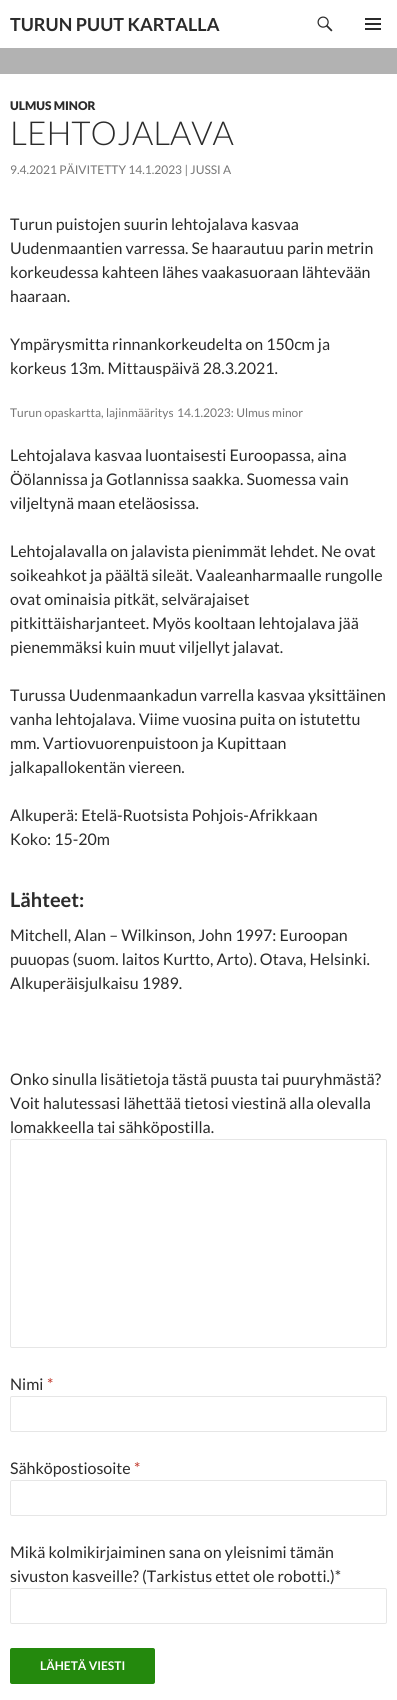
#include <cairo/cairo.h>
#include <math.h>
#include <stddef.h>


static void rounded_rect(cairo_t *cr, double x, double y, double w, double h, double r) {
  cairo_new_sub_path(cr);
  cairo_arc(cr, x + w - r, y + h - r, r, 0, M_PI / 2);
  cairo_arc(cr, x + r, y + h - r, r, M_PI / 2, M_PI);
  cairo_arc(cr, x + r, y + r, r, M_PI, 1.5 * M_PI);
  cairo_arc(cr, x + w - r, y + r, r, 1.5 * M_PI, 2 * M_PI);
  cairo_close_path(cr);
}

static void draw_image(cairo_t *cr, const char *path, double x, double y, double w, double h) {
  cairo_surface_t *image = cairo_image_surface_create_from_png(path);
  cairo_save(cr);
  cairo_set_source_surface(cr, image, x, y);
  cairo_rectangle(cr, x, y, w, h);
  cairo_fill(cr);
  cairo_restore(cr);
  cairo_surface_destroy(image);
}

static void draw(cairo_t *cr) {
  cairo_set_source_rgb(cr, 1, 1, 1);
  cairo_paint(cr);
  draw_image(cr, "images/1.png", 317, 16, 16, 16);
  draw_image(cr, "images/2.png", 365, 18, 16, 12);
  cairo_set_source_rgb(cr, 178 / 255.0, 178 / 255.0, 178 / 255.0);
  cairo_rectangle(cr, 0, 48, 397, 26);
  cairo_fill(cr);
  rounded_rect(cr, 10.5, 1139.5, 376, 208, 1.5);
  cairo_set_source_rgb(cr, 230 / 255.0, 230 / 255.0, 230 / 255.0);
  cairo_set_line_width(cr, 1);
  cairo_stroke(cr);
  rounded_rect(cr, 10.5, 1396.5, 376, 35, 1.5);
  cairo_stroke(cr);
  rounded_rect(cr, 10.5, 1480.5, 376, 35, 1.5);
  cairo_stroke(cr);
  rounded_rect(cr, 10.5, 1588.5, 376, 35, 1.5);
  cairo_stroke(cr);
  cairo_set_source_rgb(cr, 36 / 255.0, 137 / 255.0, 13 / 255.0);
  rounded_rect(cr, 10, 1648, 145, 36, 2);
  cairo_fill(cr);
  cairo_select_font_face(cr, "Lato", CAIRO_FONT_SLANT_NORMAL, CAIRO_FONT_WEIGHT_BOLD);
  cairo_set_font_size(cr, 18);
  cairo_set_source_rgb(cr, 43 / 255.0, 43 / 255.0, 43 / 255.0);
  cairo_move_to(cr, 10, 31);
  cairo_show_text(cr, "TURUN PUUT KARTALLA");
  cairo_select_font_face(cr, "Lato Black", CAIRO_FONT_SLANT_NORMAL, CAIRO_FONT_WEIGHT_NORMAL);
  cairo_set_font_size(cr, 12);
  cairo_move_to(cr, 10, 110);
  cairo_show_text(cr, "ULMUS MINOR");
  cairo_select_font_face(cr, "Lato Light", CAIRO_FONT_SLANT_NORMAL, CAIRO_FONT_WEIGHT_NORMAL);
  cairo_set_font_size(cr, 33);
  cairo_move_to(cr, 10, 145);
  cairo_show_text(cr, "LEHTOJALAVA");
  cairo_select_font_face(cr, "Lato", CAIRO_FONT_SLANT_NORMAL, CAIRO_FONT_WEIGHT_NORMAL);
  cairo_set_font_size(cr, 12);
  cairo_set_source_rgb(cr, 118 / 255.0, 118 / 255.0, 118 / 255.0);
  cairo_move_to(cr, 10, 174);
  cairo_show_text(cr, "9.4.2021 PÄIVITETTY 14.1.2023 | JUSSI A");
  cairo_set_font_size(cr, 16);
  cairo_set_source_rgb(cr, 43 / 255.0, 43 / 255.0, 43 / 255.0);
  cairo_move_to(cr, 10, 230);
  cairo_show_text(cr, "Turun puistojen suurin lehtojalava kasvaa");
  cairo_move_to(cr, 10, 254);
  cairo_show_text(cr, "Uudenmaantien varressa. Se haarautuu parin metrin");
  cairo_move_to(cr, 10, 278);
  cairo_show_text(cr, "korkeudessa kahteen lähes vaakasuoraan lähtevään");
  cairo_move_to(cr, 10, 302);
  cairo_show_text(cr, "haaraan.");
  cairo_move_to(cr, 10, 350);
  cairo_show_text(cr, "Ympärysmitta rinnankorkeudelta on 150cm ja");
  cairo_move_to(cr, 10, 374);
  cairo_show_text(cr, "korkeus 13m. Mittauspäivä 28.3.2021.");
  cairo_set_font_size(cr, 12);
  cairo_set_source_rgb(cr, 118 / 255.0, 118 / 255.0, 118 / 255.0);
  cairo_move_to(cr, 10, 417);
  cairo_show_text(cr, "Turun opaskartta, lajinmääritys");
  cairo_move_to(cr, 177, 417);
  cairo_show_text(cr, "14.1.2023: Ulmus minor");
  cairo_set_font_size(cr, 16);
  cairo_set_source_rgb(cr, 43 / 255.0, 43 / 255.0, 43 / 255.0);
  cairo_move_to(cr, 10, 461);
  cairo_show_text(cr, "Lehtojalava kasvaa luontaisesti Euroopassa, aina");
  cairo_move_to(cr, 10, 485);
  cairo_show_text(cr, "Öölannissa ja Gotlannissa saakka. Suomessa vain");
  cairo_move_to(cr, 10, 509);
  cairo_show_text(cr, "viljeltynä maan eteläosissa.");
  cairo_move_to(cr, 10, 557);
  cairo_show_text(cr, "Lehtojalavalla on jalavista pienimmät lehdet. Ne ovat");
  cairo_move_to(cr, 10, 581);
  cairo_show_text(cr, "soikeahkot ja päältä sileät. Vaaleanharmaalle rungolle");
  cairo_move_to(cr, 10, 605);
  cairo_show_text(cr, "ovat ominaisia pitkät, selvärajaiset");
  cairo_move_to(cr, 10, 629);
  cairo_show_text(cr, "pitkittäisharjanteet. Myös kooltaan lehtojalava jää");
  cairo_move_to(cr, 10, 653);
  cairo_show_text(cr, "pienemmäksi kuin muut viljellyt jalavat.");
  cairo_move_to(cr, 10, 701);
  cairo_show_text(cr, "Turussa Uudenmaankadun varrella kasvaa yksittäinen");
  cairo_move_to(cr, 10, 725);
  cairo_show_text(cr, "vanha lehtojalava. Viime vuosina puita on istutettu");
  cairo_move_to(cr, 10, 749);
  cairo_show_text(cr, "mm. Vartiovuorenpuistoon ja Kupittaan");
  cairo_move_to(cr, 10, 773);
  cairo_show_text(cr, "jalkapallokentän viereen.");
  cairo_move_to(cr, 10, 821);
  cairo_show_text(cr, "Alkuperä: Etelä-Ruotsista Pohjois-Afrikkaan");
  cairo_move_to(cr, 10, 845);
  cairo_show_text(cr, "Koko: 15-20m");
  cairo_select_font_face(cr, "Lato", CAIRO_FONT_SLANT_NORMAL, CAIRO_FONT_WEIGHT_BOLD);
  cairo_set_font_size(cr, 20);
  cairo_move_to(cr, 10, 907);
  cairo_show_text(cr, "Lähteet:");
  cairo_select_font_face(cr, "Lato", CAIRO_FONT_SLANT_NORMAL, CAIRO_FONT_WEIGHT_NORMAL);
  cairo_set_font_size(cr, 16);
  cairo_move_to(cr, 10, 941);
  cairo_show_text(cr, "Mitchell, Alan – Wilkinson, John 1997: Euroopan");
  cairo_move_to(cr, 10, 965);
  cairo_show_text(cr, "puuopas (suom. laitos Kurtto, Arto). Otava, Helsinki.");
  cairo_move_to(cr, 10, 989);
  cairo_show_text(cr, "Alkuperäisjulkaisu 1989.");
  cairo_move_to(cr, 10, 1085);
  cairo_show_text(cr, "Onko sinulla lisätietoja tästä puusta tai puuryhmästä?");
  cairo_move_to(cr, 10, 1109);
  cairo_show_text(cr, "Voit halutessasi lähettää tietosi viestinä alla olevalla");
  cairo_move_to(cr, 10, 1133);
  cairo_show_text(cr, "lomakkeella tai sähköpostilla.");
  cairo_move_to(cr, 10, 1390);
  cairo_show_text(cr, "Nimi");
  cairo_set_source_rgb(cr, 192 / 255.0, 57 / 255.0, 43 / 255.0);
  cairo_move_to(cr, 47, 1390);
  cairo_show_text(cr, "*");
  cairo_set_source_rgb(cr, 43 / 255.0, 43 / 255.0, 43 / 255.0);
  cairo_move_to(cr, 10, 1474);
  cairo_show_text(cr, "Sähköpostiosoite");
  cairo_set_source_rgb(cr, 192 / 255.0, 57 / 255.0, 43 / 255.0);
  cairo_move_to(cr, 134, 1474);
  cairo_show_text(cr, "*");
  cairo_set_source_rgb(cr, 43 / 255.0, 43 / 255.0, 43 / 255.0);
  cairo_move_to(cr, 10, 1558);
  cairo_show_text(cr, "Mikä kolmikirjaiminen sana on yleisnimi tämän");
  cairo_move_to(cr, 10, 1582);
  cairo_show_text(cr, "sivuston kasveille? (Tarkistus ettet ole robotti.)*");
  cairo_select_font_face(cr, "Lato", CAIRO_FONT_SLANT_NORMAL, CAIRO_FONT_WEIGHT_BOLD);
  cairo_set_font_size(cr, 12);
  cairo_set_source_rgb(cr, 1, 1, 1);
  cairo_move_to(cr, 40, 1670);
  cairo_show_text(cr, "LÄHETÄ VIESTI");
}

int main(void) {
  cairo_surface_t *surface = cairo_image_surface_create(CAIRO_FORMAT_RGB24, 397, 1700);
  cairo_t *cr = cairo_create(surface);
  cairo_font_options_t *options = cairo_font_options_create();
  cairo_font_options_set_hint_metrics(options, CAIRO_HINT_METRICS_OFF);
  cairo_font_options_set_hint_style(options, CAIRO_HINT_STYLE_NONE);
  cairo_set_font_options(cr, options);
  cairo_set_miter_limit(cr, 4);
  draw(cr);
  cairo_surface_write_to_png(surface, "out.png");
  cairo_font_options_destroy(options);
  cairo_destroy(cr);
  cairo_surface_destroy(surface);
  return 0;
}
